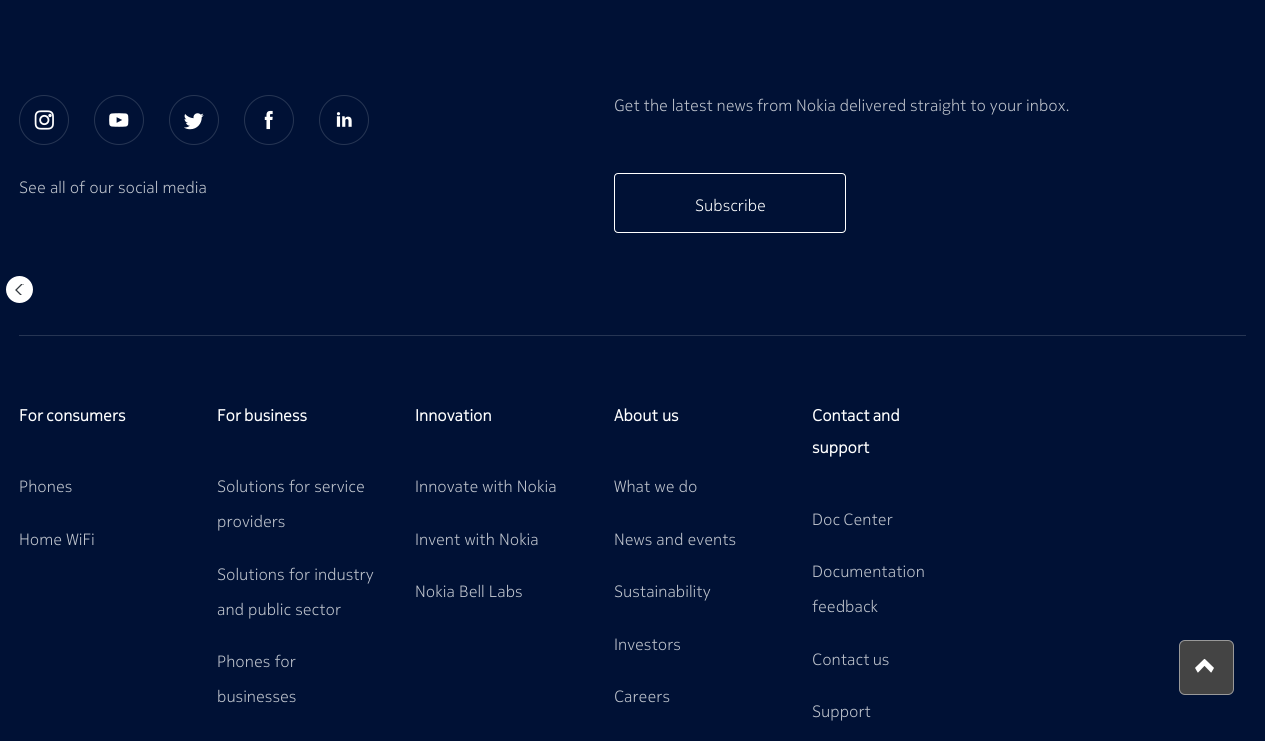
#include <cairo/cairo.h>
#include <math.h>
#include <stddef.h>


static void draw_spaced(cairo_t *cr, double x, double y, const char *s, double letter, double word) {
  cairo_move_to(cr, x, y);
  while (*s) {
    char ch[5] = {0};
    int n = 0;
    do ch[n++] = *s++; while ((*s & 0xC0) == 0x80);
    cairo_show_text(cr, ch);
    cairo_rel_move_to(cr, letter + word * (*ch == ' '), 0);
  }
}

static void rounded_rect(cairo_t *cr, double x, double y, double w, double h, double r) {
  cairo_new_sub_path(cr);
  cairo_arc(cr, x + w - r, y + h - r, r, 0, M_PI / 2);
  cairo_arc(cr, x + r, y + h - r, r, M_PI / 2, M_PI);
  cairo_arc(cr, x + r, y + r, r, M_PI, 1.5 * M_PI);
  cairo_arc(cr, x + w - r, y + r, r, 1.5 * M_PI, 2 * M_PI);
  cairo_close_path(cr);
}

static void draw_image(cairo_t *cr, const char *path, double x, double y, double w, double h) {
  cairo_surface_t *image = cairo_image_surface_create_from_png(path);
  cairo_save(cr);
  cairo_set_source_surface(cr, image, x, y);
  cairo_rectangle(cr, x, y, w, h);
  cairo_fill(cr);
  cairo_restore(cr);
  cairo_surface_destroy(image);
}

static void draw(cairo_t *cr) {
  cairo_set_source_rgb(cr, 0, 17 / 255.0, 53 / 255.0);
  cairo_paint(cr);
  cairo_arc(cr, 44, 120, 24.5, 0, 2 * M_PI);
  cairo_set_source_rgb(cr, 38 / 255.0, 53 / 255.0, 83 / 255.0);
  cairo_set_line_width(cr, 1);
  cairo_stroke(cr);
  draw_image(cr, "images/1.png", 34, 110, 20, 20);
  cairo_arc(cr, 119, 120, 24.5, 0, 2 * M_PI);
  cairo_stroke(cr);
  draw_image(cr, "images/2.png", 109, 113, 20, 14);
  cairo_arc(cr, 194, 120, 24.5, 0, 2 * M_PI);
  cairo_stroke(cr);
  draw_image(cr, "images/3.png", 184, 113, 20, 17);
  cairo_arc(cr, 269, 120, 24.5, 0, 2 * M_PI);
  cairo_stroke(cr);
  draw_image(cr, "images/4.png", 264, 110, 9, 20);
  cairo_arc(cr, 344, 120, 24.5, 0, 2 * M_PI);
  cairo_stroke(cr);
  draw_image(cr, "images/5.png", 336, 112, 16, 15);
  rounded_rect(cr, 614.5, 173.5, 231, 59, 3.5);
  cairo_set_source_rgb(cr, 1, 1, 1);
  cairo_stroke(cr);
  cairo_set_source_rgb(cr, 38 / 255.0, 53 / 255.0, 83 / 255.0);
  cairo_rectangle(cr, 19, 335, 1227, 1);
  cairo_fill(cr);
  cairo_set_source_rgb(cr, 1, 1, 1);
  cairo_arc(cr, 19.5, 289.5, 13.5, 0, 2 * M_PI);
  cairo_fill(cr);
  cairo_save(cr);
  cairo_rectangle(cr, 15, 284, 9, 11);
  cairo_clip(cr);
  cairo_new_path(cr);
  cairo_move_to(cr, 23, 283);
  cairo_line_to(cr, 30, 290);
  cairo_line_to(cr, 23, 297);
  cairo_line_to(cr, 16, 290);
  cairo_close_path(cr);
  cairo_set_source_rgb(cr, 52 / 255.0, 58 / 255.0, 64 / 255.0);
  cairo_set_line_width(cr, 1.3);
  cairo_stroke(cr);
  cairo_restore(cr);
  cairo_set_source_rgb(cr, 68 / 255.0, 68 / 255.0, 68 / 255.0);
  rounded_rect(cr, 1179.5, 640.5, 54, 54, 5.5);
  cairo_fill_preserve(cr);
  cairo_set_source_rgb(cr, 153 / 255.0, 153 / 255.0, 153 / 255.0);
  cairo_stroke(cr);
  draw_image(cr, "images/6.png", 1195, 658, 19, 15);
  cairo_select_font_face(cr, "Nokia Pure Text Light", CAIRO_FONT_SLANT_NORMAL, CAIRO_FONT_WEIGHT_NORMAL);
  cairo_set_font_size(cr, 16.25);
  cairo_set_source_rgb(cr, 191 / 255.0, 196 / 255.0, 205 / 255.0);
  cairo_move_to(cr, 19, 193);
  cairo_show_text(cr, "See all of our social media");
  draw_spaced(cr, 614, 111, "Get the latest news from Nokia delivered straight to your inbox.", 0, -0.4);
  cairo_set_source_rgb(cr, 1, 1, 1);
  cairo_move_to(cr, 695, 211);
  cairo_show_text(cr, "Subscribe");
  cairo_select_font_face(cr, "Nokia Pure Text", CAIRO_FONT_SLANT_NORMAL, CAIRO_FONT_WEIGHT_BOLD);
  draw_spaced(cr, 19, 421, "For consumers", 0, -1);
  cairo_select_font_face(cr, "Nokia Pure Text Light", CAIRO_FONT_SLANT_NORMAL, CAIRO_FONT_WEIGHT_NORMAL);
  cairo_set_source_rgb(cr, 191 / 255.0, 196 / 255.0, 205 / 255.0);
  cairo_move_to(cr, 19, 492);
  cairo_show_text(cr, "Phones");
  cairo_move_to(cr, 19, 545);
  cairo_show_text(cr, "Home WiFi");
  cairo_select_font_face(cr, "Nokia Pure Text", CAIRO_FONT_SLANT_NORMAL, CAIRO_FONT_WEIGHT_BOLD);
  cairo_set_source_rgb(cr, 1, 1, 1);
  draw_spaced(cr, 217, 421, "For business", 0, -1);
  cairo_select_font_face(cr, "Nokia Pure Text Light", CAIRO_FONT_SLANT_NORMAL, CAIRO_FONT_WEIGHT_NORMAL);
  cairo_set_source_rgb(cr, 191 / 255.0, 196 / 255.0, 205 / 255.0);
  cairo_move_to(cr, 217, 492);
  cairo_show_text(cr, "Solutions for service");
  cairo_move_to(cr, 217, 527);
  cairo_show_text(cr, "providers");
  cairo_move_to(cr, 217, 580);
  cairo_show_text(cr, "Solutions for industry");
  cairo_move_to(cr, 217, 615);
  cairo_show_text(cr, "and public sector");
  cairo_move_to(cr, 217, 667);
  cairo_show_text(cr, "Phones for");
  cairo_move_to(cr, 217, 702);
  cairo_show_text(cr, "businesses");
  cairo_select_font_face(cr, "Nokia Pure Text", CAIRO_FONT_SLANT_NORMAL, CAIRO_FONT_WEIGHT_BOLD);
  cairo_set_source_rgb(cr, 1, 1, 1);
  cairo_move_to(cr, 415, 421);
  cairo_show_text(cr, "Innovation");
  cairo_select_font_face(cr, "Nokia Pure Text Light", CAIRO_FONT_SLANT_NORMAL, CAIRO_FONT_WEIGHT_NORMAL);
  cairo_set_source_rgb(cr, 191 / 255.0, 196 / 255.0, 205 / 255.0);
  cairo_move_to(cr, 415, 492);
  cairo_show_text(cr, "Innovate with Nokia");
  cairo_move_to(cr, 415, 545);
  cairo_show_text(cr, "Invent with Nokia");
  cairo_move_to(cr, 415, 597);
  cairo_show_text(cr, "Nokia Bell Labs");
  cairo_select_font_face(cr, "Nokia Pure Text", CAIRO_FONT_SLANT_NORMAL, CAIRO_FONT_WEIGHT_BOLD);
  cairo_set_source_rgb(cr, 1, 1, 1);
  cairo_move_to(cr, 614, 421);
  cairo_show_text(cr, "About us");
  cairo_select_font_face(cr, "Nokia Pure Text Light", CAIRO_FONT_SLANT_NORMAL, CAIRO_FONT_WEIGHT_NORMAL);
  cairo_set_source_rgb(cr, 191 / 255.0, 196 / 255.0, 205 / 255.0);
  cairo_move_to(cr, 614, 492);
  cairo_show_text(cr, "What we do");
  cairo_move_to(cr, 614, 545);
  cairo_show_text(cr, "News and events");
  cairo_move_to(cr, 614, 597);
  cairo_show_text(cr, "Sustainability");
  cairo_move_to(cr, 614, 650);
  cairo_show_text(cr, "Investors");
  cairo_move_to(cr, 614, 702);
  cairo_show_text(cr, "Careers");
  cairo_select_font_face(cr, "Nokia Pure Text", CAIRO_FONT_SLANT_NORMAL, CAIRO_FONT_WEIGHT_BOLD);
  cairo_set_source_rgb(cr, 1, 1, 1);
  draw_spaced(cr, 812, 421, "Contact and", 0, -1);
  cairo_move_to(cr, 812, 453);
  cairo_show_text(cr, "support");
  cairo_select_font_face(cr, "Nokia Pure Text Light", CAIRO_FONT_SLANT_NORMAL, CAIRO_FONT_WEIGHT_NORMAL);
  cairo_set_source_rgb(cr, 191 / 255.0, 196 / 255.0, 205 / 255.0);
  draw_spaced(cr, 812, 525, "Doc Center", 0, -1);
  cairo_move_to(cr, 812, 577);
  cairo_show_text(cr, "Documentation");
  cairo_move_to(cr, 812, 612);
  cairo_show_text(cr, "feedback");
  draw_spaced(cr, 812, 665, "Contact us", 0, -1);
  cairo_move_to(cr, 812, 717);
  cairo_show_text(cr, "Support");
}

int main(void) {
  cairo_surface_t *surface = cairo_image_surface_create(CAIRO_FORMAT_RGB24, 1265, 741);
  cairo_t *cr = cairo_create(surface);
  cairo_font_options_t *options = cairo_font_options_create();
  cairo_font_options_set_hint_metrics(options, CAIRO_HINT_METRICS_OFF);
  cairo_font_options_set_hint_style(options, CAIRO_HINT_STYLE_NONE);
  cairo_set_font_options(cr, options);
  cairo_set_miter_limit(cr, 4);
  draw(cr);
  cairo_surface_write_to_png(surface, "out.png");
  cairo_font_options_destroy(options);
  cairo_destroy(cr);
  cairo_surface_destroy(surface);
  return 0;
}
